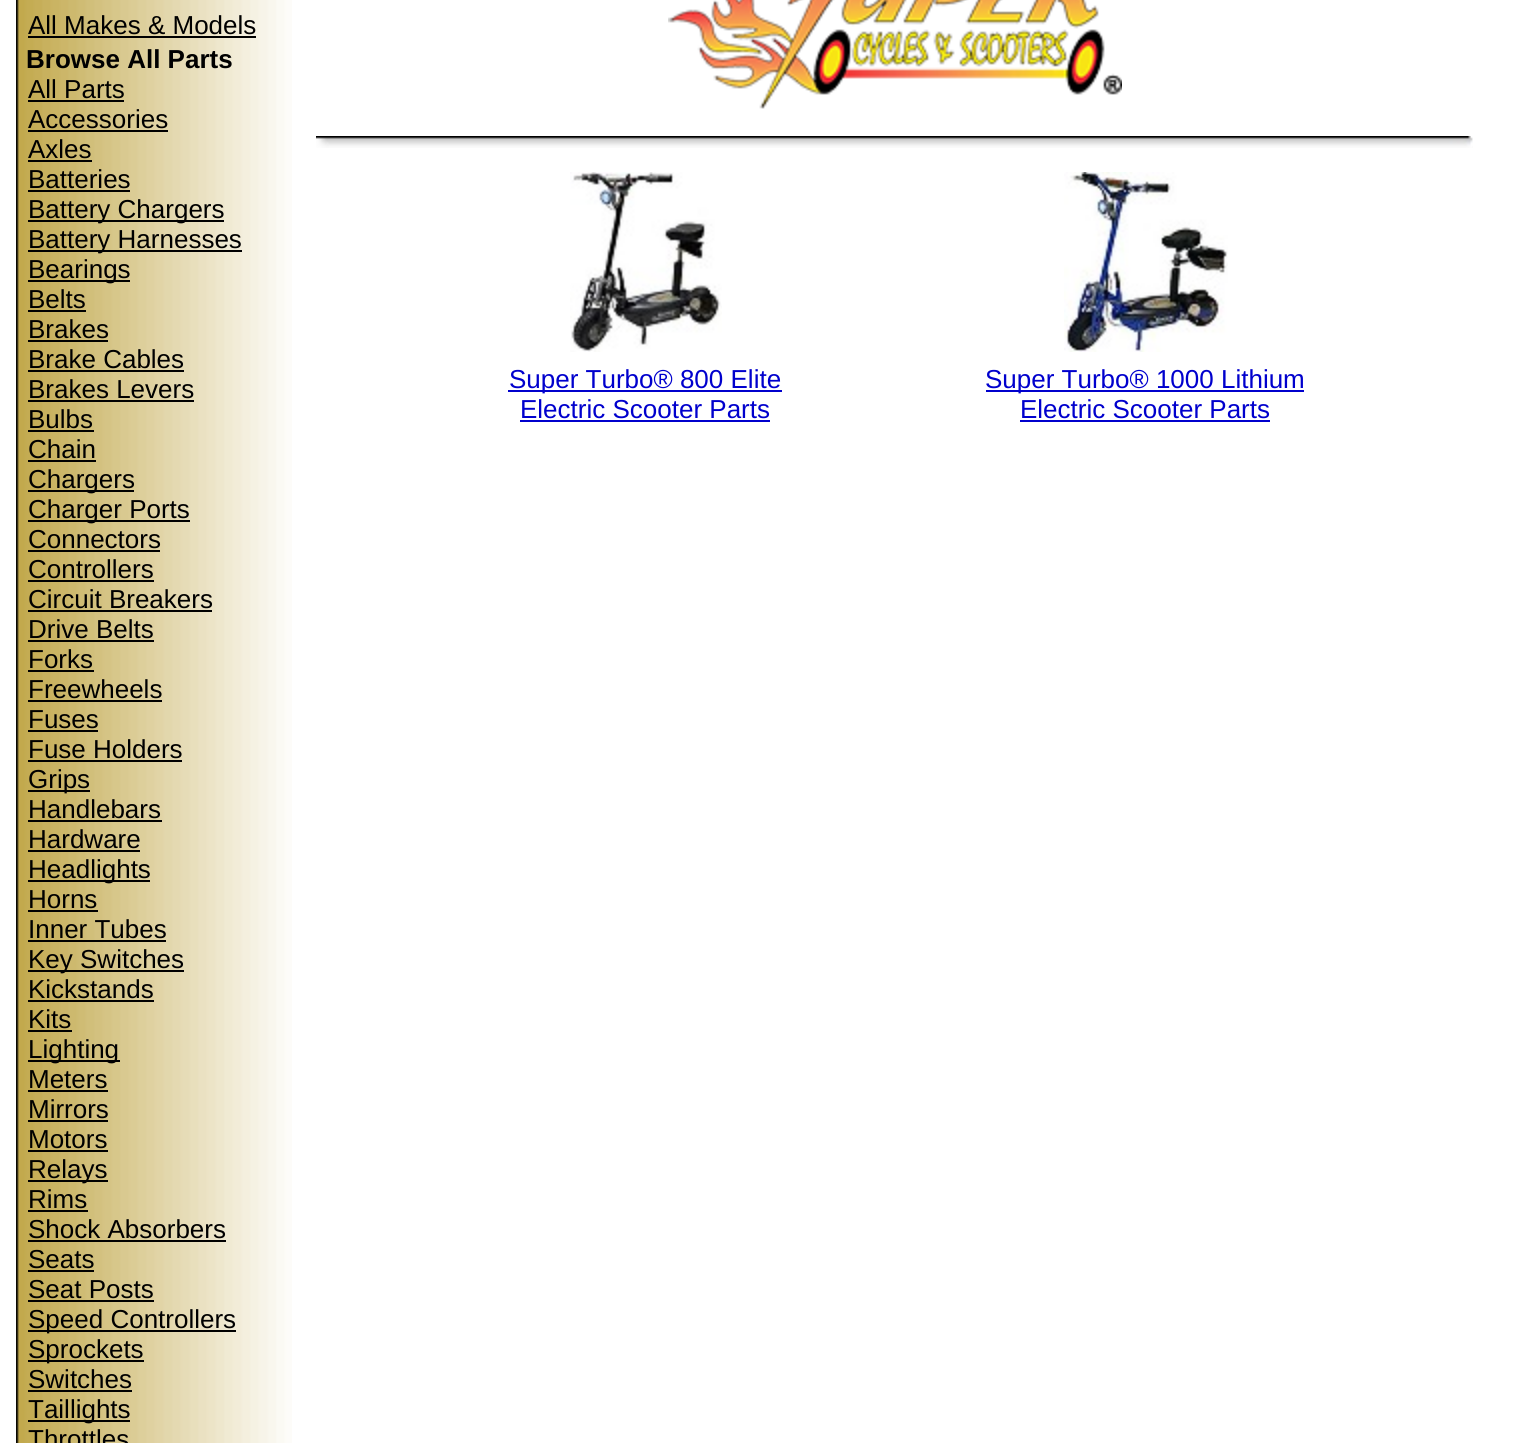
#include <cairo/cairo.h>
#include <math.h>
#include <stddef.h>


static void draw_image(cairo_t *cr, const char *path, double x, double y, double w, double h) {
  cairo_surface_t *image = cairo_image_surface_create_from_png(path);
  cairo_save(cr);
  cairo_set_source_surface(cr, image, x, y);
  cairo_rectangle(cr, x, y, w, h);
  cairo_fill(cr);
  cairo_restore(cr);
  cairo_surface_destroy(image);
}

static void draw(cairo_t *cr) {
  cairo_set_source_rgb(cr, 1, 1, 1);
  cairo_paint(cr);
  draw_image(cr, "images/1.png", 16, 0, 276, 1443);
  cairo_set_source_rgb(cr, 0, 0, 0);
  cairo_rectangle(cr, 28, 36, 228, 2);
  cairo_fill(cr);
  cairo_rectangle(cr, 28, 100, 96, 2);
  cairo_fill(cr);
  cairo_rectangle(cr, 28, 130, 140, 2);
  cairo_fill(cr);
  cairo_rectangle(cr, 28, 160, 64, 2);
  cairo_fill(cr);
  cairo_rectangle(cr, 28, 190, 102, 2);
  cairo_fill(cr);
  cairo_rectangle(cr, 28, 220, 196, 2);
  cairo_fill(cr);
  cairo_rectangle(cr, 28, 250, 214, 2);
  cairo_fill(cr);
  cairo_rectangle(cr, 28, 280, 102, 2);
  cairo_fill(cr);
  cairo_rectangle(cr, 28, 310, 58, 2);
  cairo_fill(cr);
  cairo_rectangle(cr, 28, 340, 80, 2);
  cairo_fill(cr);
  cairo_rectangle(cr, 28, 370, 156, 2);
  cairo_fill(cr);
  cairo_rectangle(cr, 28, 400, 166, 2);
  cairo_fill(cr);
  cairo_rectangle(cr, 28, 430, 66, 2);
  cairo_fill(cr);
  cairo_rectangle(cr, 28, 460, 68, 2);
  cairo_fill(cr);
  cairo_rectangle(cr, 28, 490, 106, 2);
  cairo_fill(cr);
  cairo_rectangle(cr, 28, 520, 162, 2);
  cairo_fill(cr);
  cairo_rectangle(cr, 28, 550, 132, 2);
  cairo_fill(cr);
  cairo_rectangle(cr, 28, 580, 126, 2);
  cairo_fill(cr);
  cairo_rectangle(cr, 28, 610, 184, 2);
  cairo_fill(cr);
  cairo_rectangle(cr, 28, 640, 126, 2);
  cairo_fill(cr);
  cairo_rectangle(cr, 28, 670, 66, 2);
  cairo_fill(cr);
  cairo_rectangle(cr, 28, 700, 134, 2);
  cairo_fill(cr);
  cairo_rectangle(cr, 28, 730, 70, 2);
  cairo_fill(cr);
  cairo_rectangle(cr, 28, 760, 154, 2);
  cairo_fill(cr);
  cairo_rectangle(cr, 28, 790, 62, 2);
  cairo_fill(cr);
  cairo_rectangle(cr, 28, 820, 134, 2);
  cairo_fill(cr);
  cairo_rectangle(cr, 28, 850, 112, 2);
  cairo_fill(cr);
  cairo_rectangle(cr, 28, 880, 122, 2);
  cairo_fill(cr);
  cairo_rectangle(cr, 28, 910, 70, 2);
  cairo_fill(cr);
  cairo_rectangle(cr, 28, 940, 138, 2);
  cairo_fill(cr);
  cairo_rectangle(cr, 28, 970, 156, 2);
  cairo_fill(cr);
  cairo_rectangle(cr, 28, 1000, 126, 2);
  cairo_fill(cr);
  cairo_rectangle(cr, 28, 1030, 44, 2);
  cairo_fill(cr);
  cairo_rectangle(cr, 28, 1060, 92, 2);
  cairo_fill(cr);
  cairo_rectangle(cr, 28, 1090, 80, 2);
  cairo_fill(cr);
  cairo_rectangle(cr, 28, 1120, 80, 2);
  cairo_fill(cr);
  cairo_rectangle(cr, 28, 1150, 80, 2);
  cairo_fill(cr);
  cairo_rectangle(cr, 28, 1180, 80, 2);
  cairo_fill(cr);
  cairo_rectangle(cr, 28, 1210, 60, 2);
  cairo_fill(cr);
  cairo_rectangle(cr, 28, 1240, 198, 2);
  cairo_fill(cr);
  cairo_rectangle(cr, 28, 1270, 66, 2);
  cairo_fill(cr);
  cairo_rectangle(cr, 28, 1300, 126, 2);
  cairo_fill(cr);
  cairo_rectangle(cr, 28, 1330, 208, 2);
  cairo_fill(cr);
  cairo_rectangle(cr, 28, 1360, 116, 2);
  cairo_fill(cr);
  cairo_rectangle(cr, 28, 1390, 104, 2);
  cairo_fill(cr);
  cairo_rectangle(cr, 28, 1420, 102, 2);
  cairo_fill(cr);
  draw_image(cr, "images/2.png", 668, 0, 454, 109);
  draw_image(cr, "images/3.png", 316, 136, 1157, 12);
  draw_image(cr, "images/4.png", 570, 172, 152, 180);
  draw_image(cr, "images/5.png", 1064, 172, 164, 180);
  cairo_set_source_rgb(cr, 0, 0, 205 / 255.0);
  cairo_rectangle(cr, 508, 390, 274, 2);
  cairo_fill(cr);
  cairo_rectangle(cr, 520, 420, 250, 2);
  cairo_fill(cr);
  cairo_rectangle(cr, 986, 390, 318, 2);
  cairo_fill(cr);
  cairo_rectangle(cr, 1020, 420, 250, 2);
  cairo_fill(cr);
  cairo_select_font_face(cr, "Liberation Sans", CAIRO_FONT_SLANT_NORMAL, CAIRO_FONT_WEIGHT_NORMAL);
  cairo_set_font_size(cr, 26);
  cairo_set_source_rgb(cr, 0, 0, 0);
  cairo_move_to(cr, 28, 34);
  cairo_show_text(cr, "All Makes & Models");
  cairo_select_font_face(cr, "Liberation Sans", CAIRO_FONT_SLANT_NORMAL, CAIRO_FONT_WEIGHT_BOLD);
  cairo_move_to(cr, 26, 68);
  cairo_show_text(cr, "Browse All Parts");
  cairo_select_font_face(cr, "Liberation Sans", CAIRO_FONT_SLANT_NORMAL, CAIRO_FONT_WEIGHT_NORMAL);
  cairo_move_to(cr, 28, 98);
  cairo_show_text(cr, "All Parts");
  cairo_move_to(cr, 28, 128);
  cairo_show_text(cr, "Accessories");
  cairo_move_to(cr, 28, 158);
  cairo_show_text(cr, "Axles");
  cairo_move_to(cr, 28, 188);
  cairo_show_text(cr, "Batteries");
  cairo_move_to(cr, 28, 218);
  cairo_show_text(cr, "Battery Chargers");
  cairo_move_to(cr, 28, 248);
  cairo_show_text(cr, "Battery Harnesses");
  cairo_move_to(cr, 28, 278);
  cairo_show_text(cr, "Bearings");
  cairo_move_to(cr, 28, 308);
  cairo_show_text(cr, "Belts");
  cairo_move_to(cr, 28, 338);
  cairo_show_text(cr, "Brakes");
  cairo_move_to(cr, 28, 368);
  cairo_show_text(cr, "Brake Cables");
  cairo_move_to(cr, 28, 398);
  cairo_show_text(cr, "Brakes Levers");
  cairo_move_to(cr, 28, 428);
  cairo_show_text(cr, "Bulbs");
  cairo_move_to(cr, 28, 458);
  cairo_show_text(cr, "Chain");
  cairo_move_to(cr, 28, 488);
  cairo_show_text(cr, "Chargers");
  cairo_move_to(cr, 28, 518);
  cairo_show_text(cr, "Charger Ports");
  cairo_move_to(cr, 28, 548);
  cairo_show_text(cr, "Connectors");
  cairo_move_to(cr, 28, 578);
  cairo_show_text(cr, "Controllers");
  cairo_move_to(cr, 28, 608);
  cairo_show_text(cr, "Circuit Breakers");
  cairo_move_to(cr, 28, 638);
  cairo_show_text(cr, "Drive Belts");
  cairo_move_to(cr, 28, 668);
  cairo_show_text(cr, "Forks");
  cairo_move_to(cr, 28, 698);
  cairo_show_text(cr, "Freewheels");
  cairo_move_to(cr, 28, 728);
  cairo_show_text(cr, "Fuses");
  cairo_move_to(cr, 28, 758);
  cairo_show_text(cr, "Fuse Holders");
  cairo_move_to(cr, 28, 788);
  cairo_show_text(cr, "Grips");
  cairo_move_to(cr, 28, 818);
  cairo_show_text(cr, "Handlebars");
  cairo_move_to(cr, 28, 848);
  cairo_show_text(cr, "Hardware");
  cairo_move_to(cr, 28, 878);
  cairo_show_text(cr, "Headlights");
  cairo_move_to(cr, 28, 908);
  cairo_show_text(cr, "Horns");
  cairo_move_to(cr, 28, 938);
  cairo_show_text(cr, "Inner Tubes");
  cairo_move_to(cr, 28, 968);
  cairo_show_text(cr, "Key Switches");
  cairo_move_to(cr, 28, 998);
  cairo_show_text(cr, "Kickstands");
  cairo_move_to(cr, 28, 1028);
  cairo_show_text(cr, "Kits");
  cairo_move_to(cr, 28, 1058);
  cairo_show_text(cr, "Lighting");
  cairo_move_to(cr, 28, 1088);
  cairo_show_text(cr, "Meters");
  cairo_move_to(cr, 28, 1118);
  cairo_show_text(cr, "Mirrors");
  cairo_move_to(cr, 28, 1148);
  cairo_show_text(cr, "Motors");
  cairo_move_to(cr, 28, 1178);
  cairo_show_text(cr, "Relays");
  cairo_move_to(cr, 28, 1208);
  cairo_show_text(cr, "Rims");
  cairo_move_to(cr, 28, 1238);
  cairo_show_text(cr, "Shock Absorbers");
  cairo_move_to(cr, 28, 1268);
  cairo_show_text(cr, "Seats");
  cairo_move_to(cr, 28, 1298);
  cairo_show_text(cr, "Seat Posts");
  cairo_move_to(cr, 28, 1328);
  cairo_show_text(cr, "Speed Controllers");
  cairo_move_to(cr, 28, 1358);
  cairo_show_text(cr, "Sprockets");
  cairo_move_to(cr, 28, 1388);
  cairo_show_text(cr, "Switches");
  cairo_move_to(cr, 28, 1418);
  cairo_show_text(cr, "Taillights");
  cairo_move_to(cr, 28, 1448);
  cairo_show_text(cr, "Throttles");
  cairo_set_source_rgb(cr, 0, 0, 205 / 255.0);
  cairo_move_to(cr, 509, 388);
  cairo_show_text(cr, "Super Turbo® 800 Elite");
  cairo_move_to(cr, 520, 418);
  cairo_show_text(cr, "Electric Scooter Parts");
  cairo_move_to(cr, 985, 388);
  cairo_show_text(cr, "Super Turbo® 1000 Lithium");
  cairo_move_to(cr, 1020, 418);
  cairo_show_text(cr, "Electric Scooter Parts");
}

int main(void) {
  cairo_surface_t *surface = cairo_image_surface_create(CAIRO_FORMAT_RGB24, 1513, 1443);
  cairo_t *cr = cairo_create(surface);
  cairo_font_options_t *options = cairo_font_options_create();
  cairo_font_options_set_hint_metrics(options, CAIRO_HINT_METRICS_OFF);
  cairo_font_options_set_hint_style(options, CAIRO_HINT_STYLE_NONE);
  cairo_set_font_options(cr, options);
  cairo_set_miter_limit(cr, 4);
  draw(cr);
  cairo_surface_write_to_png(surface, "out.png");
  cairo_font_options_destroy(options);
  cairo_destroy(cr);
  cairo_surface_destroy(surface);
  return 0;
}
